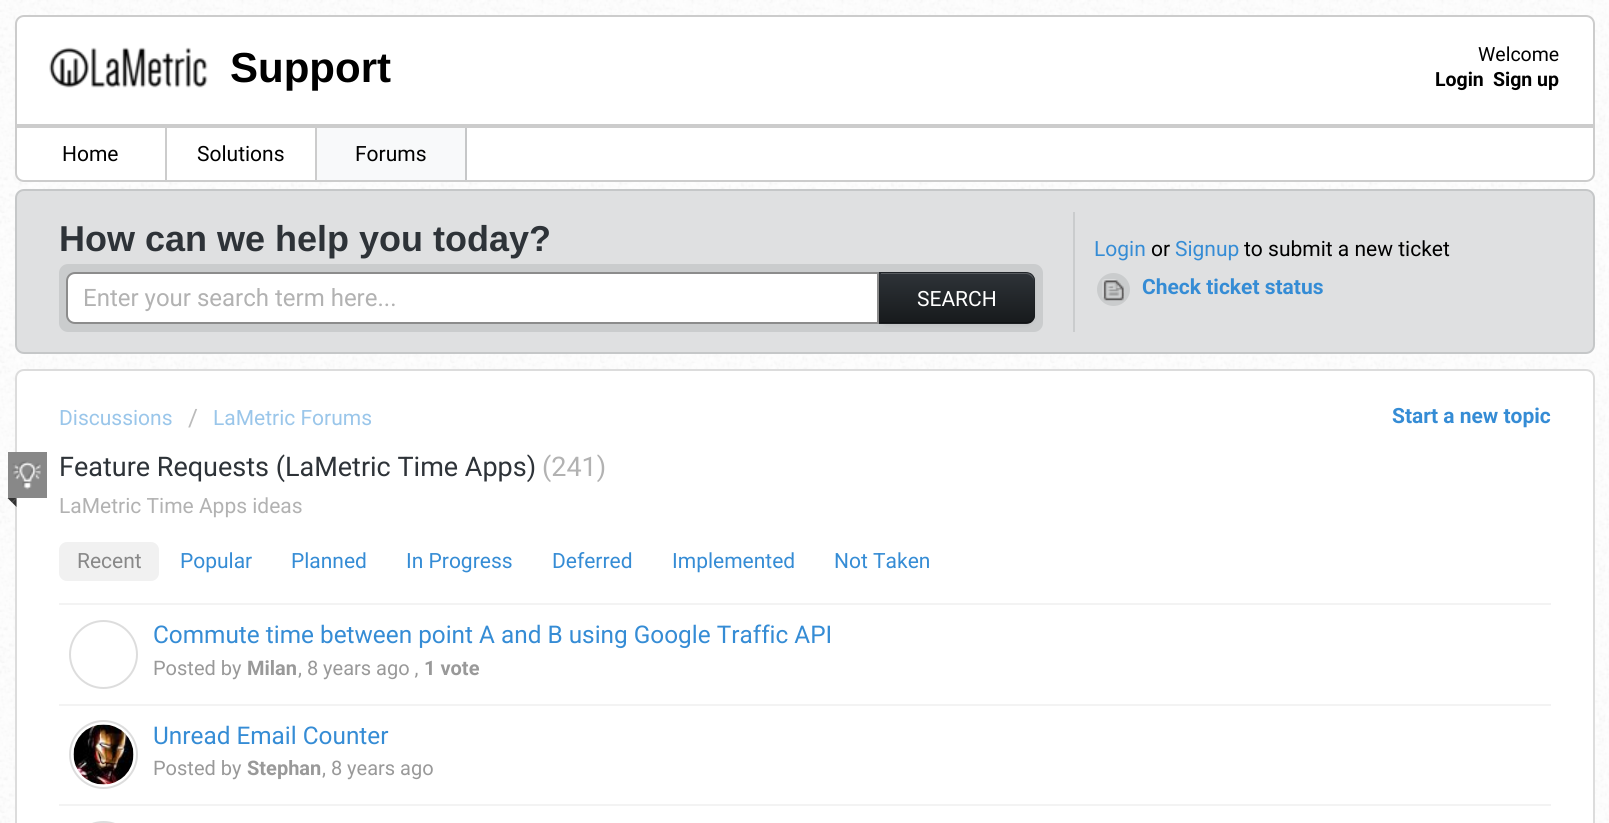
#include <cairo/cairo.h>
#include <math.h>
#include <stddef.h>


static void rounded_rect(cairo_t *cr, double x, double y, double w, double h, double r) {
  cairo_new_sub_path(cr);
  cairo_arc(cr, x + w - r, y + h - r, r, 0, M_PI / 2);
  cairo_arc(cr, x + r, y + h - r, r, M_PI / 2, M_PI);
  cairo_arc(cr, x + r, y + r, r, M_PI, 1.5 * M_PI);
  cairo_arc(cr, x + w - r, y + r, r, 1.5 * M_PI, 2 * M_PI);
  cairo_close_path(cr);
}

static void draw_shadow(cairo_t *cr, double x, double y, double w, double h, double r, double blur, double alpha) {
  cairo_push_group_with_content(cr, CAIRO_CONTENT_ALPHA);
  cairo_set_operator(cr, CAIRO_OPERATOR_SOURCE);
  for (int i = 15; i >= -15 && fmin(w, h) + blur * i / 3 > 0; i -= 2) {
    double e = blur * i / 6;
    cairo_set_source_rgba(cr, 0, 0, 0, alpha * erfc((i - 1) / 8.5) / 2);
    rounded_rect(cr, x - e, y - e, w + 2 * e, h + 2 * e, fmax(0, fmin(r + e + blur * .6, fmin(w, h) / 2 + e)));
    cairo_fill(cr);
  }
  cairo_pattern_t *soft = cairo_pop_group(cr);
  cairo_mask(cr, soft);
  cairo_pattern_destroy(soft);
}

static void draw_image(cairo_t *cr, const char *path, double x, double y, double w, double h) {
  cairo_surface_t *image = cairo_image_surface_create_from_png(path);
  cairo_save(cr);
  cairo_set_source_surface(cr, image, x, y);
  cairo_rectangle(cr, x, y, w, h);
  cairo_fill(cr);
  cairo_restore(cr);
  cairo_surface_destroy(image);
}

static void draw(cairo_t *cr) {
  cairo_pattern_t *gradient;
  cairo_set_source_rgb(cr, 1, 1, 1);
  cairo_paint(cr);
  draw_image(cr, "images/1.png", 0, 0, 1609, 823);
  cairo_set_source_rgb(cr, 1, 1, 1);
  cairo_new_path(cr);
  cairo_move_to(cr, 24, 16);
  cairo_line_to(cr, 1586, 16);
  cairo_curve_to(cr, 1590.5, 16, 1594, 19.5, 1594, 24);
  cairo_line_to(cr, 1594, 125);
  cairo_line_to(cr, 16, 125);
  cairo_line_to(cr, 16, 24);
  cairo_curve_to(cr, 16, 19.5, 19.5, 16, 24, 16);
  cairo_close_path(cr);
  cairo_fill_preserve(cr);
  cairo_set_source_rgb(cr, 204 / 255.0, 204 / 255.0, 204 / 255.0);
  cairo_stroke(cr);
  draw_image(cr, "images/2.png", 49, 47, 159, 41);
  cairo_set_source_rgb(cr, 1, 1, 1);
  cairo_new_path(cr);
  cairo_move_to(cr, 15, 126);
  cairo_line_to(cr, 1595, 126);
  cairo_line_to(cr, 1595, 173);
  cairo_curve_to(cr, 1595, 178, 1591, 182, 1586, 182);
  cairo_line_to(cr, 24, 182);
  cairo_curve_to(cr, 19, 182, 15, 178, 15, 173);
  cairo_close_path(cr);
  cairo_fill(cr);
  cairo_new_path(cr);
  cairo_move_to(cr, 16, 127);
  cairo_line_to(cr, 1594, 127);
  cairo_line_to(cr, 1594, 173);
  cairo_curve_to(cr, 1594, 177.5, 1590.5, 181, 1586, 181);
  cairo_line_to(cr, 24, 181);
  cairo_curve_to(cr, 19.5, 181, 16, 177.5, 16, 173);
  cairo_close_path(cr);
  cairo_set_source_rgba(cr, 0, 0, 0, 0.2);
  cairo_stroke(cr);
  cairo_set_source_rgb(cr, 204 / 255.0, 204 / 255.0, 204 / 255.0);
  cairo_rectangle(cr, 165, 128, 2, 52);
  cairo_fill(cr);
  cairo_rectangle(cr, 315, 128, 2, 52);
  cairo_fill(cr);
  cairo_set_source_rgb(cr, 248 / 255.0, 249 / 255.0, 250 / 255.0);
  cairo_rectangle(cr, 317, 128, 148, 52);
  cairo_fill(cr);
  cairo_set_source_rgb(cr, 198 / 255.0, 199 / 255.0, 200 / 255.0);
  cairo_rectangle(cr, 465, 128, 2, 52);
  cairo_fill(cr);
  cairo_set_source_rgb(cr, 223 / 255.0, 224 / 255.0, 225 / 255.0);
  rounded_rect(cr, 16, 190, 1578, 163, 8);
  cairo_fill_preserve(cr);
  cairo_set_source_rgb(cr, 197 / 255.0, 199 / 255.0, 200 / 255.0);
  cairo_stroke(cr);
  cairo_set_source_rgb(cr, 202 / 255.0, 204 / 255.0, 205 / 255.0);
  cairo_rectangle(cr, 1073, 212, 2, 120);
  cairo_fill(cr);
  rounded_rect(cr, 59, 264, 984, 68, 9);
  cairo_fill(cr);
  cairo_set_source_rgb(cr, 1, 1, 1);
  cairo_new_path(cr);
  cairo_move_to(cr, 75, 273);
  cairo_line_to(cr, 878, 273);
  cairo_line_to(cr, 878, 323);
  cairo_line_to(cr, 75, 323);
  cairo_curve_to(cr, 70.5, 323, 67, 319.5, 67, 315);
  cairo_line_to(cr, 67, 281);
  cairo_curve_to(cr, 67, 276.5, 70.5, 273, 75, 273);
  cairo_close_path(cr);
  cairo_fill_preserve(cr);
  cairo_set_source_rgb(cr, 140 / 255.0, 140 / 255.0, 140 / 255.0);
  cairo_stroke(cr);
  cairo_set_source_rgb(cr, 0, 0, 0);
  draw_shadow(cr, 879, 273, 156, 53, 9, 1.5, 0.05);
  cairo_set_source_rgb(cr, 37 / 255.0, 41 / 255.0, 45 / 255.0);
  cairo_new_path(cr);
  cairo_move_to(cr, 879, 272);
  cairo_line_to(cr, 1026, 272);
  cairo_curve_to(cr, 1031, 272, 1035, 276, 1035, 281);
  cairo_line_to(cr, 1035, 315);
  cairo_curve_to(cr, 1035, 320, 1031, 324, 1026, 324);
  cairo_line_to(cr, 879, 324);
  cairo_close_path(cr);
  cairo_fill(cr);
  cairo_save(cr);
  cairo_new_path(cr);
  cairo_move_to(cr, 879, 272);
  cairo_line_to(cr, 1026, 272);
  cairo_curve_to(cr, 1031, 272, 1035, 276, 1035, 281);
  cairo_line_to(cr, 1035, 315);
  cairo_curve_to(cr, 1035, 320, 1031, 324, 1026, 324);
  cairo_line_to(cr, 879, 324);
  cairo_close_path(cr);
  cairo_clip(cr);
  gradient = cairo_pattern_create_linear(957, 273, 957, 323);
  cairo_pattern_add_color_stop_rgba(gradient, 0, 46 / 255.0, 51 / 255.0, 56 / 255.0, 1);
  cairo_pattern_add_color_stop_rgba(gradient, 1, 23 / 255.0, 26 / 255.0, 28 / 255.0, 1);
  cairo_set_source(cr, gradient);
  cairo_pattern_destroy(gradient);
  cairo_rectangle(cr, 879, 273, 156, 50);
  cairo_fill(cr);
  cairo_restore(cr);
  cairo_set_source_rgba(cr, 1, 1, 1, 0.2);
  cairo_new_path(cr);
  cairo_move_to(cr, 881, 273);
  cairo_line_to(cr, 881, 274);
  cairo_line_to(cr, 1026, 274);
  cairo_curve_to(cr, 1030, 274, 1034, 278, 1034, 282);
  cairo_curve_to(cr, 1034, 277, 1031, 273, 1026, 273);
  cairo_close_path(cr);
  cairo_fill(cr);
  cairo_set_source_rgba(cr, 0, 0, 0, 0.1);
  cairo_new_path(cr);
  cairo_move_to(cr, 1032, 274);
  cairo_curve_to(cr, 1031, 273, 1028, 272, 1026, 272);
  cairo_line_to(cr, 880, 272);
  cairo_line_to(cr, 880, 273);
  cairo_line_to(cr, 1026, 273);
  cairo_curve_to(cr, 1028, 273, 1030, 274, 1032, 275);
  cairo_close_path(cr);
  cairo_fill(cr);
  cairo_new_path(cr);
  cairo_move_to(cr, 1032, 274);
  cairo_curve_to(cr, 1034, 276, 1035, 278, 1035, 280);
  cairo_line_to(cr, 1035, 315);
  cairo_curve_to(cr, 1035, 318, 1034, 320, 1032, 321);
  cairo_line_to(cr, 1031, 320);
  cairo_curve_to(cr, 1033, 319, 1034, 317, 1034, 315);
  cairo_line_to(cr, 1034, 280);
  cairo_curve_to(cr, 1034, 278, 1033, 276, 1032, 275);
  cairo_close_path(cr);
  cairo_fill(cr);
  cairo_set_source_rgba(cr, 0, 0, 0, 0.25);
  cairo_new_path(cr);
  cairo_move_to(cr, 1026, 324);
  cairo_curve_to(cr, 1028, 324, 1031, 323, 1032, 321);
  cairo_line_to(cr, 1031, 320);
  cairo_curve_to(cr, 1030, 321, 1028, 322, 1026, 322);
  cairo_line_to(cr, 881, 322);
  cairo_line_to(cr, 879, 324);
  cairo_close_path(cr);
  cairo_fill(cr);
  cairo_set_source_rgba(cr, 0, 0, 0, 0.1);
  cairo_new_path(cr);
  cairo_move_to(cr, 880, 273);
  cairo_line_to(cr, 879, 272);
  cairo_line_to(cr, 879, 324);
  cairo_line_to(cr, 881, 322);
  cairo_line_to(cr, 880, 322);
  cairo_close_path(cr);
  cairo_fill(cr);
  cairo_set_source_rgb(cr, 202 / 255.0, 204 / 255.0, 205 / 255.0);
  cairo_arc(cr, 1113.5, 289.5, 16.5, 0, 2 * M_PI);
  cairo_fill(cr);
  draw_image(cr, "images/3.png", 1102, 279, 22, 22);
  cairo_set_source_rgb(cr, 1, 1, 1);
  rounded_rect(cr, 16, 370, 1578, 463, 8);
  cairo_fill_preserve(cr);
  cairo_set_source_rgb(cr, 220 / 255.0, 220 / 255.0, 220 / 255.0);
  cairo_stroke(cr);
  cairo_set_source_rgb(cr, 136 / 255.0, 136 / 255.0, 136 / 255.0);
  cairo_rectangle(cr, 8, 452, 39, 46);
  cairo_fill(cr);
  draw_image(cr, "images/4.png", 12, 460, 29, 30);
  cairo_set_source_rgb(cr, 51 / 255.0, 51 / 255.0, 51 / 255.0);
  cairo_new_path(cr);
  cairo_move_to(cr, 7.5, 498);
  cairo_line_to(cr, 16.5, 498);
  cairo_line_to(cr, 12, 502.5);
  cairo_close_path(cr);
  cairo_fill(cr);
  cairo_new_path(cr);
  cairo_move_to(cr, 16.5, 498);
  cairo_line_to(cr, 16.5, 507);
  cairo_line_to(cr, 12, 502.5);
  cairo_close_path(cr);
  cairo_fill(cr);
  cairo_set_source_rgb(cr, 241 / 255.0, 241 / 255.0, 241 / 255.0);
  rounded_rect(cr, 59, 542, 100, 39, 8);
  cairo_fill(cr);
  cairo_set_source_rgb(cr, 243 / 255.0, 243 / 255.0, 243 / 255.0);
  cairo_rectangle(cr, 59, 603, 1492, 2);
  cairo_fill(cr);
  cairo_arc(cr, 103.5, 654.5, 33.5, 0, 2 * M_PI);
  cairo_set_source_rgb(cr, 221 / 255.0, 221 / 255.0, 221 / 255.0);
  cairo_stroke(cr);
  cairo_set_source_rgb(cr, 243 / 255.0, 243 / 255.0, 243 / 255.0);
  cairo_rectangle(cr, 59, 704, 1492, 2);
  cairo_fill(cr);
  cairo_arc(cr, 103.5, 754.5, 33.5, 0, 2 * M_PI);
  cairo_set_source_rgb(cr, 221 / 255.0, 221 / 255.0, 221 / 255.0);
  cairo_stroke(cr);
  draw_image(cr, "images/5.png", 73, 724, 61, 61);
  cairo_set_source_rgb(cr, 243 / 255.0, 243 / 255.0, 243 / 255.0);
  cairo_rectangle(cr, 59, 804, 1492, 2);
  cairo_fill(cr);
  rounded_rect(cr, 70, 822, 67, 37, 33.5);
  cairo_set_source_rgb(cr, 221 / 255.0, 221 / 255.0, 221 / 255.0);
  cairo_stroke(cr);
  cairo_select_font_face(cr, "Liberation Sans", CAIRO_FONT_SLANT_NORMAL, CAIRO_FONT_WEIGHT_BOLD);
  cairo_set_font_size(cr, 42);
  cairo_set_source_rgb(cr, 0, 0, 0);
  cairo_move_to(cr, 230, 82);
  cairo_show_text(cr, "Support");
  cairo_select_font_face(cr, "Roboto", CAIRO_FONT_SLANT_NORMAL, CAIRO_FONT_WEIGHT_NORMAL);
  cairo_set_font_size(cr, 19.5);
  cairo_move_to(cr, 1478, 61);
  cairo_show_text(cr, "Welcome");
  cairo_select_font_face(cr, "Roboto", CAIRO_FONT_SLANT_NORMAL, CAIRO_FONT_WEIGHT_BOLD);
  cairo_move_to(cr, 1435, 86);
  cairo_show_text(cr, "Login");
  cairo_move_to(cr, 1493, 86);
  cairo_show_text(cr, "Sign up");
  cairo_select_font_face(cr, "Roboto", CAIRO_FONT_SLANT_NORMAL, CAIRO_FONT_WEIGHT_NORMAL);
  cairo_set_font_size(cr, 21);
  cairo_move_to(cr, 62, 161);
  cairo_show_text(cr, "Home");
  cairo_move_to(cr, 197, 161);
  cairo_show_text(cr, "Solutions");
  cairo_move_to(cr, 355, 161);
  cairo_show_text(cr, "Forums");
  cairo_select_font_face(cr, "Liberation Sans", CAIRO_FONT_SLANT_NORMAL, CAIRO_FONT_WEIGHT_BOLD);
  cairo_set_font_size(cr, 36);
  cairo_set_source_rgb(cr, 46 / 255.0, 51 / 255.0, 56 / 255.0);
  cairo_move_to(cr, 59, 251);
  cairo_show_text(cr, "How can we help you today?");
  cairo_select_font_face(cr, "Roboto", CAIRO_FONT_SLANT_NORMAL, CAIRO_FONT_WEIGHT_NORMAL);
  cairo_set_font_size(cr, 24);
  cairo_set_source_rgb(cr, 178 / 255.0, 178 / 255.0, 178 / 255.0);
  cairo_move_to(cr, 83, 306);
  cairo_show_text(cr, "Enter your search term here...");
  cairo_set_font_size(cr, 21);
  cairo_set_source_rgb(cr, 1, 1, 1);
  cairo_move_to(cr, 917, 306);
  cairo_show_text(cr, "SEARCH");
  cairo_set_source_rgb(cr, 53 / 255.0, 140 / 255.0, 213 / 255.0);
  cairo_move_to(cr, 1094, 256);
  cairo_show_text(cr, "Login");
  cairo_set_source_rgb(cr, 0, 0, 0);
  cairo_move_to(cr, 1151, 256);
  cairo_show_text(cr, "or");
  cairo_set_source_rgb(cr, 53 / 255.0, 140 / 255.0, 213 / 255.0);
  cairo_move_to(cr, 1175, 256);
  cairo_show_text(cr, "Signup");
  cairo_set_source_rgb(cr, 0, 0, 0);
  cairo_move_to(cr, 1244, 256);
  cairo_show_text(cr, "to submit a new ticket");
  cairo_select_font_face(cr, "Roboto", CAIRO_FONT_SLANT_NORMAL, CAIRO_FONT_WEIGHT_BOLD);
  cairo_set_source_rgb(cr, 53 / 255.0, 140 / 255.0, 213 / 255.0);
  cairo_move_to(cr, 1142, 294);
  cairo_show_text(cr, "Check ticket status");
  cairo_select_font_face(cr, "Roboto", CAIRO_FONT_SLANT_NORMAL, CAIRO_FONT_WEIGHT_NORMAL);
  cairo_set_source_rgb(cr, 154 / 255.0, 198 / 255.0, 234 / 255.0);
  cairo_move_to(cr, 59, 425);
  cairo_show_text(cr, "Discussions");
  cairo_set_font_size(cr, 24);
  cairo_set_source_rgb(cr, 187 / 255.0, 187 / 255.0, 187 / 255.0);
  cairo_move_to(cr, 188, 426);
  cairo_show_text(cr, "/");
  cairo_set_font_size(cr, 21);
  cairo_set_source_rgb(cr, 154 / 255.0, 198 / 255.0, 234 / 255.0);
  cairo_move_to(cr, 213, 425);
  cairo_show_text(cr, "LaMetric Forums");
  cairo_select_font_face(cr, "Roboto", CAIRO_FONT_SLANT_NORMAL, CAIRO_FONT_WEIGHT_BOLD);
  cairo_set_source_rgb(cr, 53 / 255.0, 140 / 255.0, 213 / 255.0);
  cairo_move_to(cr, 1392, 423);
  cairo_show_text(cr, "Start a new topic");
  cairo_select_font_face(cr, "Roboto", CAIRO_FONT_SLANT_NORMAL, CAIRO_FONT_WEIGHT_NORMAL);
  cairo_set_font_size(cr, 27);
  cairo_set_source_rgb(cr, 46 / 255.0, 51 / 255.0, 56 / 255.0);
  cairo_move_to(cr, 59, 476);
  cairo_show_text(cr, "Feature Requests (LaMetric Time Apps)");
  cairo_set_source_rgb(cr, 178 / 255.0, 178 / 255.0, 178 / 255.0);
  cairo_move_to(cr, 542, 476);
  cairo_show_text(cr, "(241)");
  cairo_set_font_size(cr, 21);
  cairo_move_to(cr, 59, 513);
  cairo_show_text(cr, "LaMetric Time Apps ideas");
  cairo_set_source_rgb(cr, 136 / 255.0, 136 / 255.0, 136 / 255.0);
  cairo_move_to(cr, 77, 568);
  cairo_show_text(cr, "Recent");
  cairo_set_source_rgb(cr, 53 / 255.0, 140 / 255.0, 213 / 255.0);
  cairo_move_to(cr, 180, 568);
  cairo_show_text(cr, "Popular");
  cairo_move_to(cr, 291, 568);
  cairo_show_text(cr, "Planned");
  cairo_move_to(cr, 406, 568);
  cairo_show_text(cr, "In Progress");
  cairo_move_to(cr, 552, 568);
  cairo_show_text(cr, "Deferred");
  cairo_move_to(cr, 672, 568);
  cairo_show_text(cr, "Implemented");
  cairo_move_to(cr, 834, 568);
  cairo_show_text(cr, "Not Taken");
  cairo_set_font_size(cr, 24.35);
  cairo_move_to(cr, 153, 643);
  cairo_show_text(cr, "Commute time between point A and B using Google Traffic API");
  cairo_set_font_size(cr, 20);
  cairo_set_source_rgb(cr, 153 / 255.0, 153 / 255.0, 153 / 255.0);
  cairo_move_to(cr, 153, 675);
  cairo_show_text(cr, "Posted by");
  cairo_select_font_face(cr, "Roboto", CAIRO_FONT_SLANT_NORMAL, CAIRO_FONT_WEIGHT_BOLD);
  cairo_move_to(cr, 247, 675);
  cairo_show_text(cr, "Milan");
  cairo_select_font_face(cr, "Roboto", CAIRO_FONT_SLANT_NORMAL, CAIRO_FONT_WEIGHT_NORMAL);
  cairo_move_to(cr, 298, 675);
  cairo_show_text(cr, ", 8 years ago ,");
  cairo_select_font_face(cr, "Roboto", CAIRO_FONT_SLANT_NORMAL, CAIRO_FONT_WEIGHT_BOLD);
  cairo_move_to(cr, 424, 675);
  cairo_show_text(cr, "1 vote");
  cairo_select_font_face(cr, "Roboto", CAIRO_FONT_SLANT_NORMAL, CAIRO_FONT_WEIGHT_NORMAL);
  cairo_set_font_size(cr, 24.35);
  cairo_set_source_rgb(cr, 53 / 255.0, 140 / 255.0, 213 / 255.0);
  cairo_move_to(cr, 153, 744);
  cairo_show_text(cr, "Unread Email Counter");
  cairo_set_font_size(cr, 20);
  cairo_set_source_rgb(cr, 153 / 255.0, 153 / 255.0, 153 / 255.0);
  cairo_move_to(cr, 153, 775);
  cairo_show_text(cr, "Posted by");
  cairo_select_font_face(cr, "Roboto", CAIRO_FONT_SLANT_NORMAL, CAIRO_FONT_WEIGHT_BOLD);
  cairo_move_to(cr, 247, 775);
  cairo_show_text(cr, "Stephan");
  cairo_select_font_face(cr, "Roboto", CAIRO_FONT_SLANT_NORMAL, CAIRO_FONT_WEIGHT_NORMAL);
  cairo_move_to(cr, 322, 775);
  cairo_show_text(cr, ", 8 years ago");
}

int main(void) {
  cairo_surface_t *surface = cairo_image_surface_create(CAIRO_FORMAT_RGB24, 1609, 823);
  cairo_t *cr = cairo_create(surface);
  cairo_font_options_t *options = cairo_font_options_create();
  cairo_font_options_set_hint_metrics(options, CAIRO_HINT_METRICS_OFF);
  cairo_font_options_set_hint_style(options, CAIRO_HINT_STYLE_NONE);
  cairo_set_font_options(cr, options);
  cairo_set_miter_limit(cr, 4);
  draw(cr);
  cairo_surface_write_to_png(surface, "out.png");
  cairo_font_options_destroy(options);
  cairo_destroy(cr);
  cairo_surface_destroy(surface);
  return 0;
}
